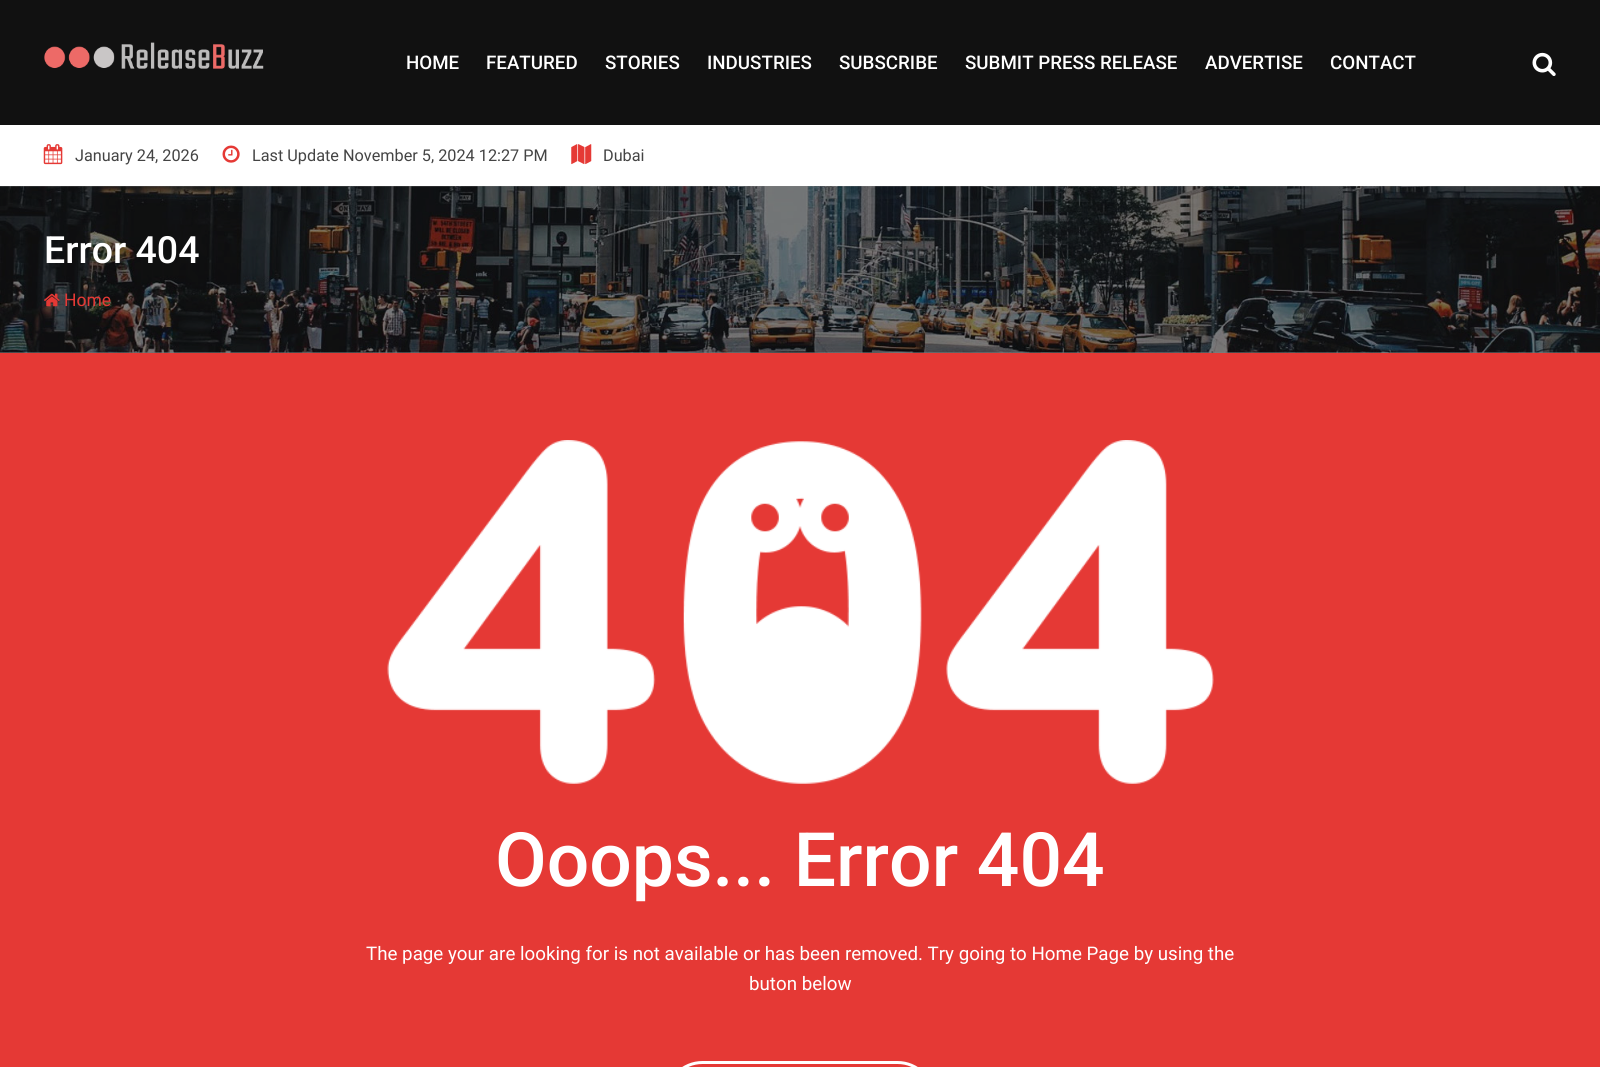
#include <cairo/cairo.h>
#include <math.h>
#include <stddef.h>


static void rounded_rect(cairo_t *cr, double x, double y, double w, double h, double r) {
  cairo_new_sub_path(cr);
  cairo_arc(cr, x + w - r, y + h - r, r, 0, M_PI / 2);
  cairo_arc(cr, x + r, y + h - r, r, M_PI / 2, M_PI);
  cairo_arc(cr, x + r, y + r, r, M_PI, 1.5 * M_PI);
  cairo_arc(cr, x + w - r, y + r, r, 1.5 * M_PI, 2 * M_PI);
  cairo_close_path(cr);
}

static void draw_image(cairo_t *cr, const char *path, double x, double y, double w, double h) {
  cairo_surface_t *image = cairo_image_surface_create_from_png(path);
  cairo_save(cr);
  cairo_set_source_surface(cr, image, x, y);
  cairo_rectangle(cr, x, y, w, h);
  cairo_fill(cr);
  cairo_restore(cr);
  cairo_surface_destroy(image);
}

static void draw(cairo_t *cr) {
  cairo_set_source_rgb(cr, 1, 1, 1);
  cairo_paint(cr);
  cairo_set_source_rgb(cr, 128 / 255.0, 128 / 255.0, 128 / 255.0);
  cairo_rectangle(cr, 0, 186, 1600, 167);
  cairo_fill(cr);
  cairo_set_source_rgb(cr, 17 / 255.0, 17 / 255.0, 17 / 255.0);
  cairo_rectangle(cr, 0, 0, 1600, 125);
  cairo_fill(cr);
  draw_image(cr, "images/1.png", 44, 42, 220, 27);
  draw_image(cr, "images/2.png", 1532, 52, 24, 24);
  draw_image(cr, "images/3.png", 43, 144, 20, 21);
  draw_image(cr, "images/4.png", 222, 145, 18, 18);
  draw_image(cr, "images/5.png", 571, 144, 21, 21);
  draw_image(cr, "images/6.png", 0, 186, 1600, 167);
  draw_image(cr, "images/7.png", 44, 293, 16, 14);
  cairo_set_source_rgb(cr, 229 / 255.0, 57 / 255.0, 53 / 255.0);
  cairo_rectangle(cr, 0, 353, 1600, 714);
  cairo_fill(cr);
  draw_image(cr, "images/8.png", 387, 440, 827, 344);
  rounded_rect(cr, 666.5, 1062.5, 267, 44, 36);
  cairo_set_source_rgb(cr, 1, 1, 1);
  cairo_set_line_width(cr, 3);
  cairo_stroke(cr);
  cairo_select_font_face(cr, "Roboto Medium", CAIRO_FONT_SLANT_NORMAL, CAIRO_FONT_WEIGHT_NORMAL);
  cairo_set_font_size(cr, 18.75);
  cairo_move_to(cr, 406, 69);
  cairo_show_text(cr, "HOME");
  cairo_move_to(cr, 486, 69);
  cairo_show_text(cr, "FEATURED");
  cairo_move_to(cr, 605, 69);
  cairo_show_text(cr, "STORIES");
  cairo_move_to(cr, 707, 69);
  cairo_show_text(cr, "INDUSTRIES");
  cairo_move_to(cr, 839, 69);
  cairo_show_text(cr, "SUBSCRIBE");
  cairo_move_to(cr, 965, 69);
  cairo_show_text(cr, "SUBMIT PRESS RELEASE");
  cairo_move_to(cr, 1205, 69);
  cairo_show_text(cr, "ADVERTISE");
  cairo_move_to(cr, 1330, 69);
  cairo_show_text(cr, "CONTACT");
  cairo_select_font_face(cr, "Roboto", CAIRO_FONT_SLANT_NORMAL, CAIRO_FONT_WEIGHT_NORMAL);
  cairo_set_font_size(cr, 16.25);
  cairo_set_source_rgb(cr, 68 / 255.0, 68 / 255.0, 68 / 255.0);
  cairo_move_to(cr, 75, 161);
  cairo_show_text(cr, "January 24, 2026");
  cairo_move_to(cr, 252, 161);
  cairo_show_text(cr, "Last Update November 5, 2024 12:27 PM");
  cairo_move_to(cr, 603, 161);
  cairo_show_text(cr, "Dubai");
  cairo_select_font_face(cr, "Roboto Medium", CAIRO_FONT_SLANT_NORMAL, CAIRO_FONT_WEIGHT_NORMAL);
  cairo_set_font_size(cr, 37.5);
  cairo_set_source_rgb(cr, 1, 1, 1);
  cairo_move_to(cr, 44, 263);
  cairo_show_text(cr, "Error 404");
  cairo_select_font_face(cr, "Roboto", CAIRO_FONT_SLANT_NORMAL, CAIRO_FONT_WEIGHT_NORMAL);
  cairo_set_font_size(cr, 17.5);
  cairo_set_source_rgb(cr, 229 / 255.0, 57 / 255.0, 53 / 255.0);
  cairo_move_to(cr, 64, 306);
  cairo_show_text(cr, "Home");
  cairo_select_font_face(cr, "Liberation Sans", CAIRO_FONT_SLANT_ITALIC, CAIRO_FONT_WEIGHT_NORMAL);
  cairo_set_font_size(cr, 18.75);
  cairo_set_source_rgb(cr, 68 / 255.0, 68 / 255.0, 68 / 255.0);
  cairo_move_to(cr, 116, 306);
  cairo_show_text(cr, "∙");
  cairo_select_font_face(cr, "Roboto Medium", CAIRO_FONT_SLANT_NORMAL, CAIRO_FONT_WEIGHT_NORMAL);
  cairo_set_font_size(cr, 75);
  cairo_set_source_rgb(cr, 1, 1, 1);
  cairo_move_to(cr, 495, 886);
  cairo_show_text(cr, "Ooops... Error 404");
  cairo_select_font_face(cr, "Roboto", CAIRO_FONT_SLANT_NORMAL, CAIRO_FONT_WEIGHT_NORMAL);
  cairo_set_font_size(cr, 18.75);
  cairo_move_to(cr, 366, 960);
  cairo_show_text(cr, "The page your are looking for is not available or has been removed. Try going to Home Page by using the");
  cairo_move_to(cr, 749, 990);
  cairo_show_text(cr, "buton below");
}

int main(void) {
  cairo_surface_t *surface = cairo_image_surface_create(CAIRO_FORMAT_RGB24, 1600, 1067);
  cairo_t *cr = cairo_create(surface);
  cairo_font_options_t *options = cairo_font_options_create();
  cairo_font_options_set_hint_metrics(options, CAIRO_HINT_METRICS_OFF);
  cairo_font_options_set_hint_style(options, CAIRO_HINT_STYLE_NONE);
  cairo_set_font_options(cr, options);
  cairo_set_miter_limit(cr, 4);
  draw(cr);
  cairo_surface_write_to_png(surface, "out.png");
  cairo_font_options_destroy(options);
  cairo_destroy(cr);
  cairo_surface_destroy(surface);
  return 0;
}
